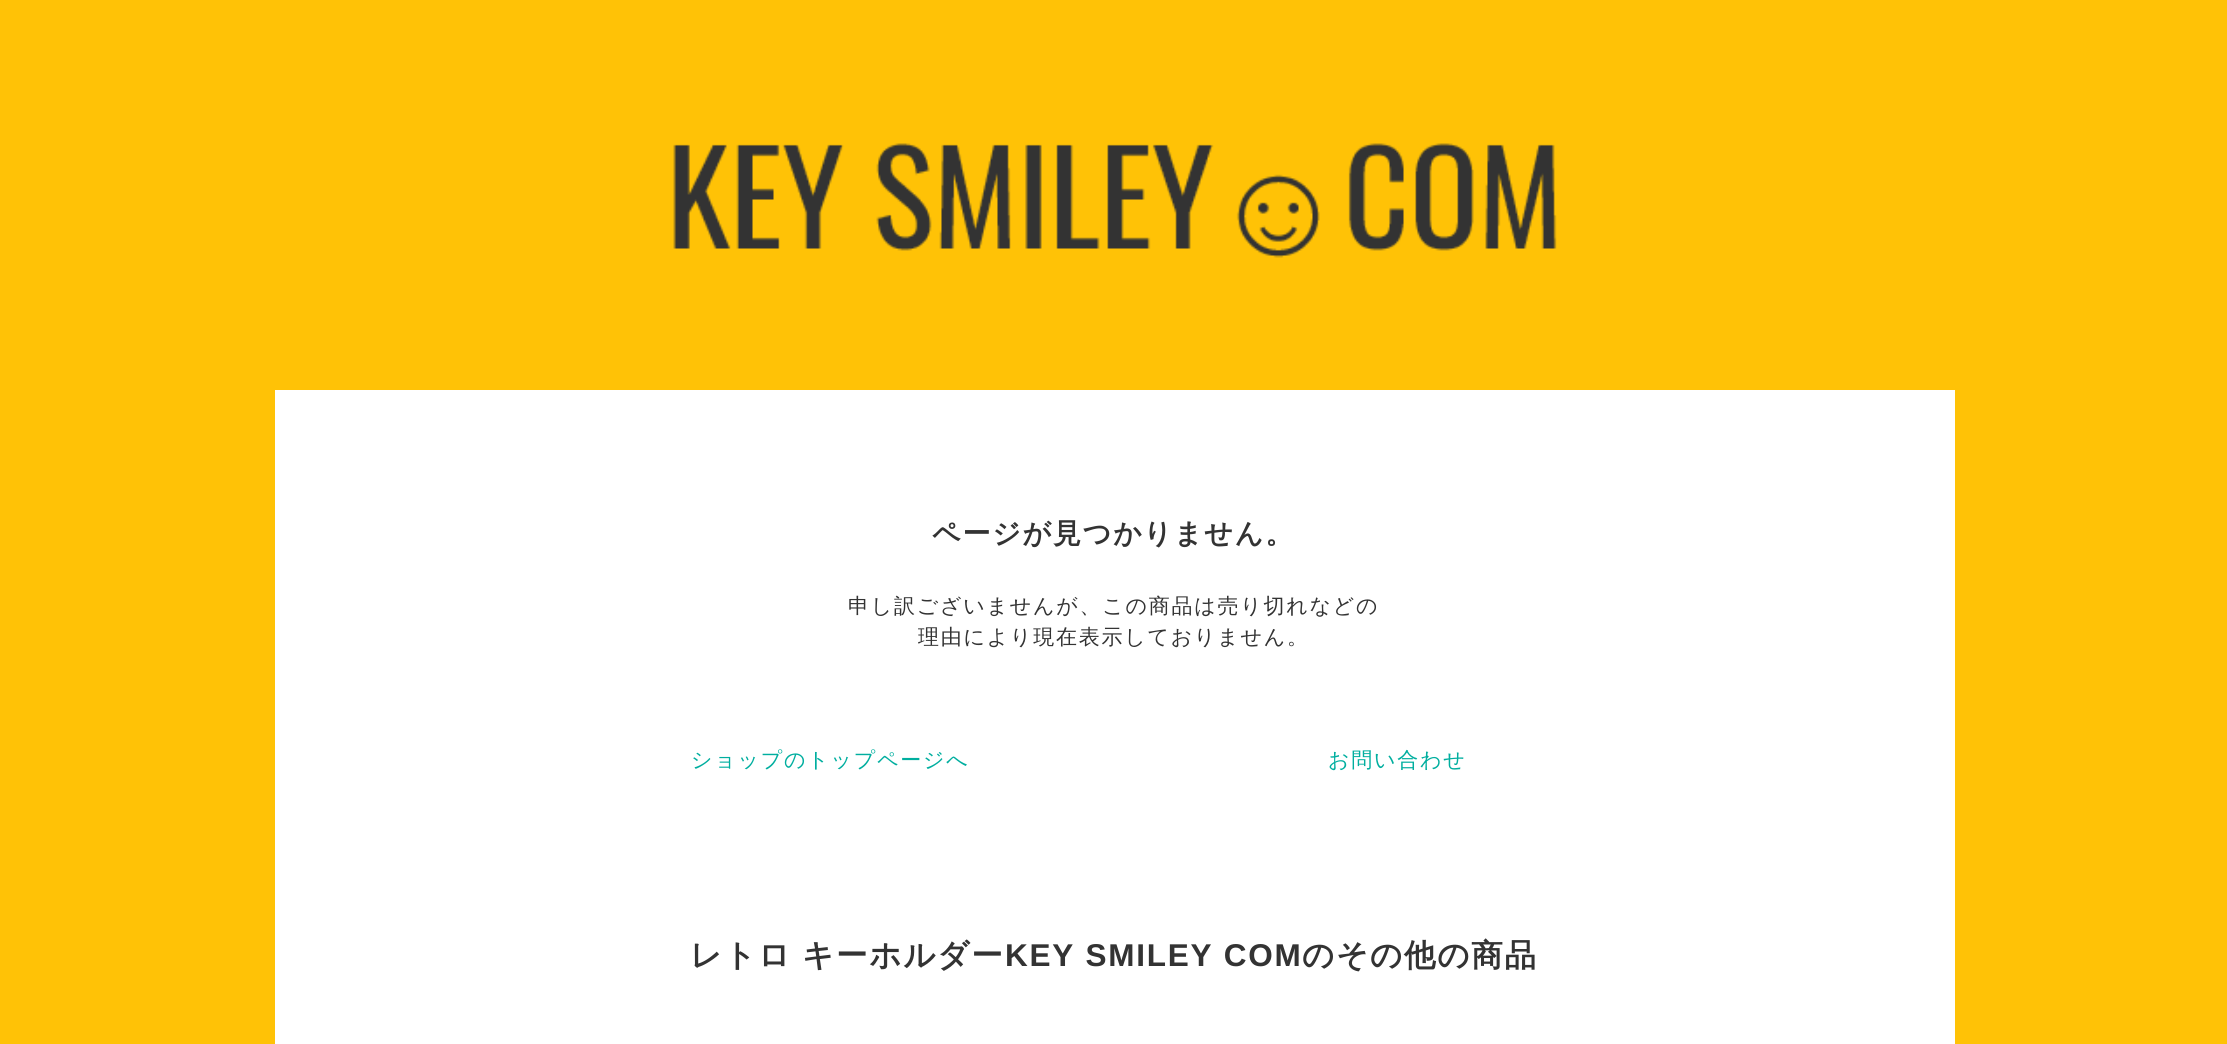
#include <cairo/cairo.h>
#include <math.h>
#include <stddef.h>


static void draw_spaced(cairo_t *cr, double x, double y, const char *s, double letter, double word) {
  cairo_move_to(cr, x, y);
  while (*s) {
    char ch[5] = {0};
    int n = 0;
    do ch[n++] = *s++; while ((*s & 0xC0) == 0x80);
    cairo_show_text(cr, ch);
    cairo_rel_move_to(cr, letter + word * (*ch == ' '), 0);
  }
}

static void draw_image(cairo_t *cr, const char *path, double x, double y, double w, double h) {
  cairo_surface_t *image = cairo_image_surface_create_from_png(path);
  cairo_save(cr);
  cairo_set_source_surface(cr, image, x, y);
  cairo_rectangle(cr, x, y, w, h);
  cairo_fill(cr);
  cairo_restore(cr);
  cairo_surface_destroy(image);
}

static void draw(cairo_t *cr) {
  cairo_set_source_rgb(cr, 1, 194 / 255.0, 6 / 255.0);
  cairo_paint(cr);
  draw_image(cr, "images/1.png", 673, 143, 884, 115);
  cairo_set_source_rgb(cr, 1, 1, 1);
  cairo_rectangle(cr, 275, 390, 1680, 654);
  cairo_fill(cr);
  cairo_select_font_face(cr, "WenQuanYi Zen Hei", CAIRO_FONT_SLANT_NORMAL, CAIRO_FONT_WEIGHT_BOLD);
  cairo_set_font_size(cr, 28);
  cairo_set_source_rgb(cr, 51 / 255.0, 51 / 255.0, 51 / 255.0);
  draw_spaced(cr, 932, 543, "ページが見つかりません。", 1.75, 0);
  cairo_select_font_face(cr, "WenQuanYi Zen Hei Medium", CAIRO_FONT_SLANT_NORMAL, CAIRO_FONT_WEIGHT_NORMAL);
  cairo_set_font_size(cr, 21);
  draw_spaced(cr, 848, 613, "申し訳ございませんが、この商品は売り切れなどの", 1.75, 0);
  draw_spaced(cr, 918, 644, "理由により現在表示しておりません。", 1.75, 0);
  cairo_set_source_rgb(cr, 0, 174 / 255.0, 159 / 255.0);
  draw_spaced(cr, 691, 767, "ショップのトップページへ", 1.75, 0);
  draw_spaced(cr, 1328, 767, "お問い合わせ", 1.75, 0);
  cairo_select_font_face(cr, "WenQuanYi Zen Hei", CAIRO_FONT_SLANT_NORMAL, CAIRO_FONT_WEIGHT_BOLD);
  cairo_set_font_size(cr, 31.5);
  cairo_set_source_rgb(cr, 51 / 255.0, 51 / 255.0, 51 / 255.0);
  draw_spaced(cr, 690, 966, "レトロ", 1.75, 0);
  draw_spaced(cr, 802, 966, "キーホルダー", 1.75, 0);
  cairo_select_font_face(cr, "Liberation Sans", CAIRO_FONT_SLANT_NORMAL, CAIRO_FONT_WEIGHT_BOLD);
  draw_spaced(cr, 1005, 966, "KEY SMILEY COM", 1.75, 0);
  cairo_select_font_face(cr, "WenQuanYi Zen Hei", CAIRO_FONT_SLANT_NORMAL, CAIRO_FONT_WEIGHT_BOLD);
  draw_spaced(cr, 1302, 966, "のその他の商品", 1.75, 0);
}

int main(void) {
  cairo_surface_t *surface = cairo_image_surface_create(CAIRO_FORMAT_RGB24, 2227, 1044);
  cairo_t *cr = cairo_create(surface);
  cairo_font_options_t *options = cairo_font_options_create();
  cairo_font_options_set_hint_metrics(options, CAIRO_HINT_METRICS_OFF);
  cairo_font_options_set_hint_style(options, CAIRO_HINT_STYLE_NONE);
  cairo_set_font_options(cr, options);
  cairo_set_miter_limit(cr, 4);
  draw(cr);
  cairo_surface_write_to_png(surface, "out.png");
  cairo_font_options_destroy(options);
  cairo_destroy(cr);
  cairo_surface_destroy(surface);
  return 0;
}
